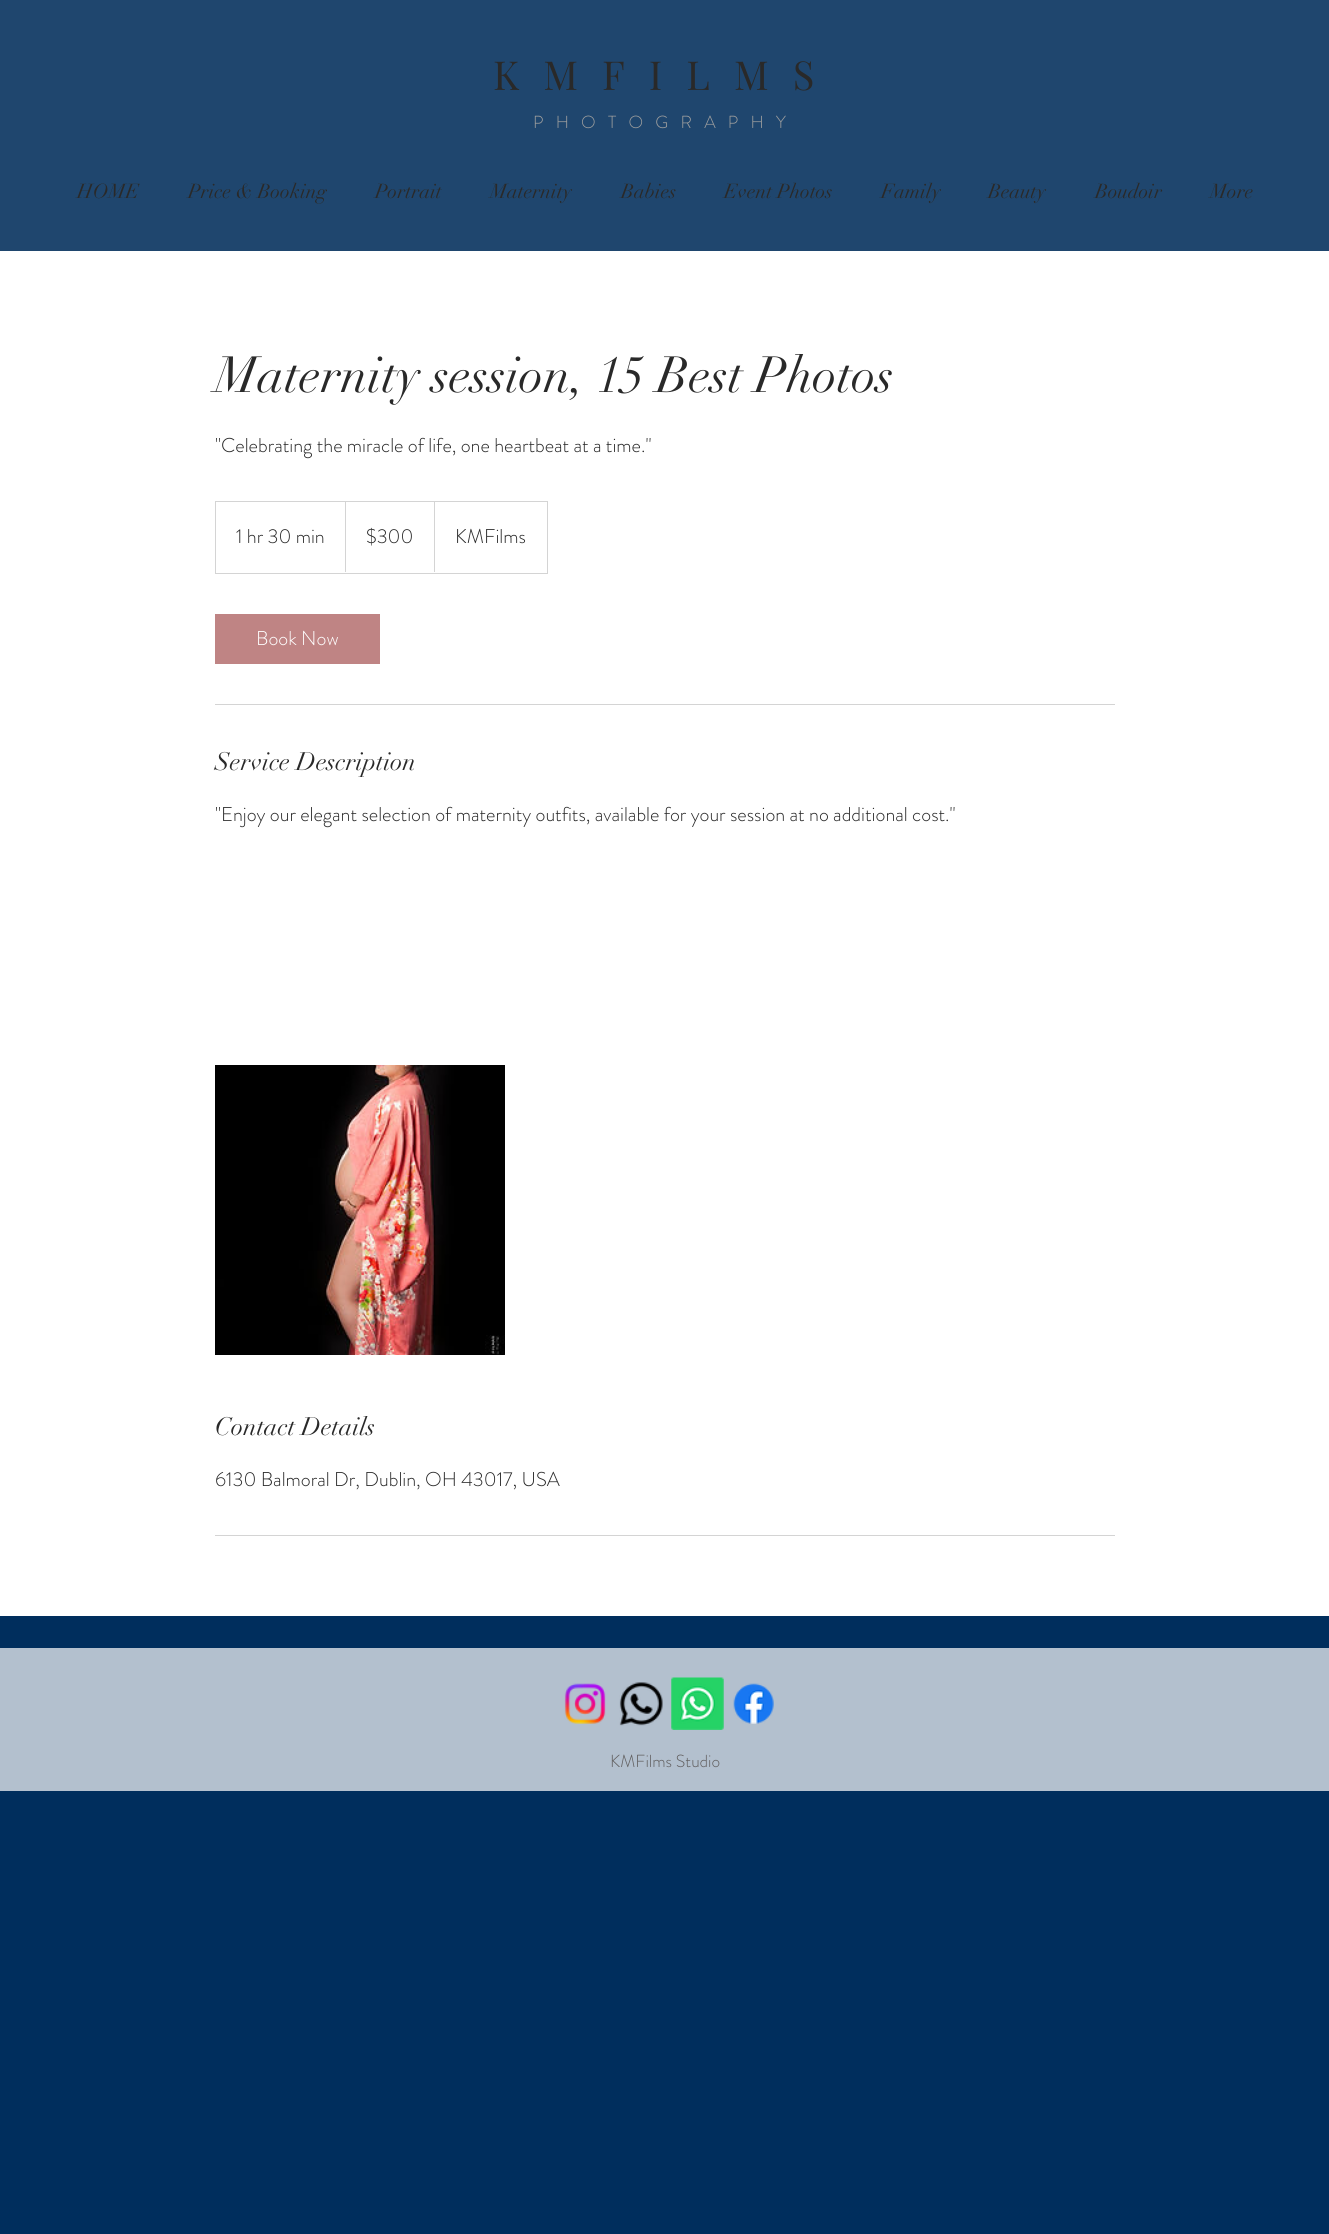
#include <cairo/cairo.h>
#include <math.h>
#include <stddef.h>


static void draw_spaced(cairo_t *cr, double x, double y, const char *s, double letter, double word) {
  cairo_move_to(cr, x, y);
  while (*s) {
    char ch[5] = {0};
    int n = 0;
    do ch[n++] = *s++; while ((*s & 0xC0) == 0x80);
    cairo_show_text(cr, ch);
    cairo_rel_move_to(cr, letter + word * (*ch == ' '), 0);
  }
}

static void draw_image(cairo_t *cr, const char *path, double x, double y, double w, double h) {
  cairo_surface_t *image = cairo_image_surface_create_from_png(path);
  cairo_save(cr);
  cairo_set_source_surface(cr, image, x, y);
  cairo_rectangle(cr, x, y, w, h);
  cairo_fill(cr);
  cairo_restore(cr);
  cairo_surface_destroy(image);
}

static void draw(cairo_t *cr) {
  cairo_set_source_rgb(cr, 0, 46 / 255.0, 93 / 255.0);
  cairo_paint(cr);
  cairo_set_source_rgb(cr, 31 / 255.0, 70 / 255.0, 110 / 255.0);
  cairo_rectangle(cr, 0, 0, 1329, 251);
  cairo_fill(cr);
  cairo_set_source_rgb(cr, 1, 1, 1);
  cairo_rectangle(cr, 0, 251, 1329, 1365);
  cairo_fill(cr);
  cairo_rectangle(cr, 215.5, 501.5, 332, 72);
  cairo_set_source_rgb(cr, 212 / 255.0, 212 / 255.0, 212 / 255.0);
  cairo_set_line_width(cr, 1);
  cairo_stroke(cr);
  cairo_new_path(cr);
  cairo_move_to(cr, 345, 572);
  cairo_line_to(cr, 345, 501);
  cairo_line_to(cr, 346, 502);
  cairo_line_to(cr, 346, 572);
  cairo_close_path(cr);
  cairo_fill(cr);
  cairo_new_path(cr);
  cairo_move_to(cr, 434, 572);
  cairo_line_to(cr, 434, 501);
  cairo_line_to(cr, 435, 502);
  cairo_line_to(cr, 435, 572);
  cairo_close_path(cr);
  cairo_fill(cr);
  cairo_set_source_rgb(cr, 191 / 255.0, 132 / 255.0, 132 / 255.0);
  cairo_rectangle(cr, 215, 614, 165, 50);
  cairo_fill(cr);
  cairo_set_source_rgb(cr, 212 / 255.0, 212 / 255.0, 212 / 255.0);
  cairo_rectangle(cr, 215, 704, 900, 1);
  cairo_fill(cr);
  draw_image(cr, "images/1.png", 215, 1065, 110, 290);
  draw_image(cr, "images/2.png", 325, 1065, 180, 290);
  cairo_rectangle(cr, 215, 1535, 900, 1);
  cairo_fill(cr);
  cairo_set_source_rgb(cr, 179 / 255.0, 192 / 255.0, 206 / 255.0);
  cairo_rectangle(cr, 0, 1648, 1329, 143);
  cairo_fill(cr);
  draw_image(cr, "images/3.png", 564, 1683, 42, 41);
  draw_image(cr, "images/4.png", 619, 1682, 44, 44);
  draw_image(cr, "images/5.png", 671, 1677, 53, 53);
  draw_image(cr, "images/6.png", 733, 1683, 41, 41);
  cairo_select_font_face(cr, "Playfair Display", CAIRO_FONT_SLANT_NORMAL, CAIRO_FONT_WEIGHT_NORMAL);
  cairo_set_font_size(cr, 40);
  cairo_set_source_rgb(cr, 41 / 255.0, 41 / 255.0, 41 / 255.0);
  draw_spaced(cr, 493, 90, "KMFILMS", 24, 0);
  cairo_select_font_face(cr, "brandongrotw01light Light", CAIRO_FONT_SLANT_NORMAL, CAIRO_FONT_WEIGHT_NORMAL);
  cairo_set_font_size(cr, 17.5);
  cairo_set_source_rgb(cr, 160 / 255.0, 160 / 255.0, 159 / 255.0);
  draw_spaced(cr, 533, 128, "PHOTOGRAPHY", 12.25, 0);
  cairo_select_font_face(cr, "didot", CAIRO_FONT_SLANT_NORMAL, CAIRO_FONT_WEIGHT_NORMAL);
  cairo_set_font_size(cr, 20);
  cairo_set_source_rgb(cr, 41 / 255.0, 41 / 255.0, 41 / 255.0);
  cairo_move_to(cr, 77, 198);
  cairo_show_text(cr, "HOME");
  cairo_move_to(cr, 188, 198);
  cairo_show_text(cr, "Price & Booking");
  cairo_move_to(cr, 375, 198);
  cairo_show_text(cr, "Portrait");
  cairo_move_to(cr, 490, 198);
  cairo_show_text(cr, "Maternity");
  cairo_move_to(cr, 621, 198);
  cairo_show_text(cr, "Babies");
  cairo_move_to(cr, 724, 198);
  cairo_show_text(cr, "Event Photos");
  cairo_move_to(cr, 881, 198);
  cairo_show_text(cr, "Family");
  cairo_move_to(cr, 988, 198);
  cairo_show_text(cr, "Beauty");
  cairo_move_to(cr, 1095, 198);
  cairo_show_text(cr, "Boudoir");
  cairo_move_to(cr, 1210, 198);
  cairo_show_text(cr, "More");
  cairo_set_font_size(cr, 50);
  cairo_move_to(cr, 215, 392);
  cairo_show_text(cr, "Maternity session, 15 Best Photos");
  cairo_select_font_face(cr, "brandongrotw01light Light", CAIRO_FONT_SLANT_NORMAL, CAIRO_FONT_WEIGHT_NORMAL);
  cairo_set_font_size(cr, 20);
  cairo_move_to(cr, 215, 452);
  cairo_show_text(cr, "\"Celebrating the miracle of life, one heartbeat at a time.\"");
  cairo_move_to(cr, 236, 543);
  cairo_show_text(cr, "1 hr 30 min");
  cairo_move_to(cr, 366, 543);
  cairo_show_text(cr, "$300");
  cairo_move_to(cr, 455, 543);
  cairo_show_text(cr, "KMFilms");
  cairo_set_source_rgb(cr, 1, 1, 1);
  cairo_move_to(cr, 256, 645);
  cairo_show_text(cr, "Book Now");
  cairo_select_font_face(cr, "didot", CAIRO_FONT_SLANT_NORMAL, CAIRO_FONT_WEIGHT_NORMAL);
  cairo_set_font_size(cr, 25);
  cairo_set_source_rgb(cr, 41 / 255.0, 41 / 255.0, 41 / 255.0);
  cairo_move_to(cr, 215, 770);
  cairo_show_text(cr, "Service Description");
  cairo_select_font_face(cr, "brandongrotw01light Light", CAIRO_FONT_SLANT_NORMAL, CAIRO_FONT_WEIGHT_NORMAL);
  cairo_set_font_size(cr, 20);
  cairo_move_to(cr, 215, 821);
  cairo_show_text(cr, "\"Enjoy our elegant selection of maternity outfits, available for your session at no additional cost.\"");
  cairo_select_font_face(cr, "didot", CAIRO_FONT_SLANT_NORMAL, CAIRO_FONT_WEIGHT_NORMAL);
  cairo_set_font_size(cr, 25);
  cairo_move_to(cr, 215, 1435);
  cairo_show_text(cr, "Contact Details");
  cairo_select_font_face(cr, "brandongrotw01light Light", CAIRO_FONT_SLANT_NORMAL, CAIRO_FONT_WEIGHT_NORMAL);
  cairo_set_font_size(cr, 20);
  cairo_move_to(cr, 215, 1486);
  cairo_show_text(cr, "6130 Balmoral Dr, Dublin, OH 43017, USA");
  cairo_set_font_size(cr, 17.5);
  cairo_set_source_rgb(cr, 96 / 255.0, 94 / 255.0, 94 / 255.0);
  cairo_move_to(cr, 610, 1767);
  cairo_show_text(cr, "KMFilms Studio");
}

int main(void) {
  cairo_surface_t *surface = cairo_image_surface_create(CAIRO_FORMAT_RGB24, 1329, 2234);
  cairo_t *cr = cairo_create(surface);
  cairo_font_options_t *options = cairo_font_options_create();
  cairo_font_options_set_hint_metrics(options, CAIRO_HINT_METRICS_OFF);
  cairo_font_options_set_hint_style(options, CAIRO_HINT_STYLE_NONE);
  cairo_set_font_options(cr, options);
  cairo_set_miter_limit(cr, 4);
  draw(cr);
  cairo_surface_write_to_png(surface, "out.png");
  cairo_font_options_destroy(options);
  cairo_destroy(cr);
  cairo_surface_destroy(surface);
  return 0;
}
